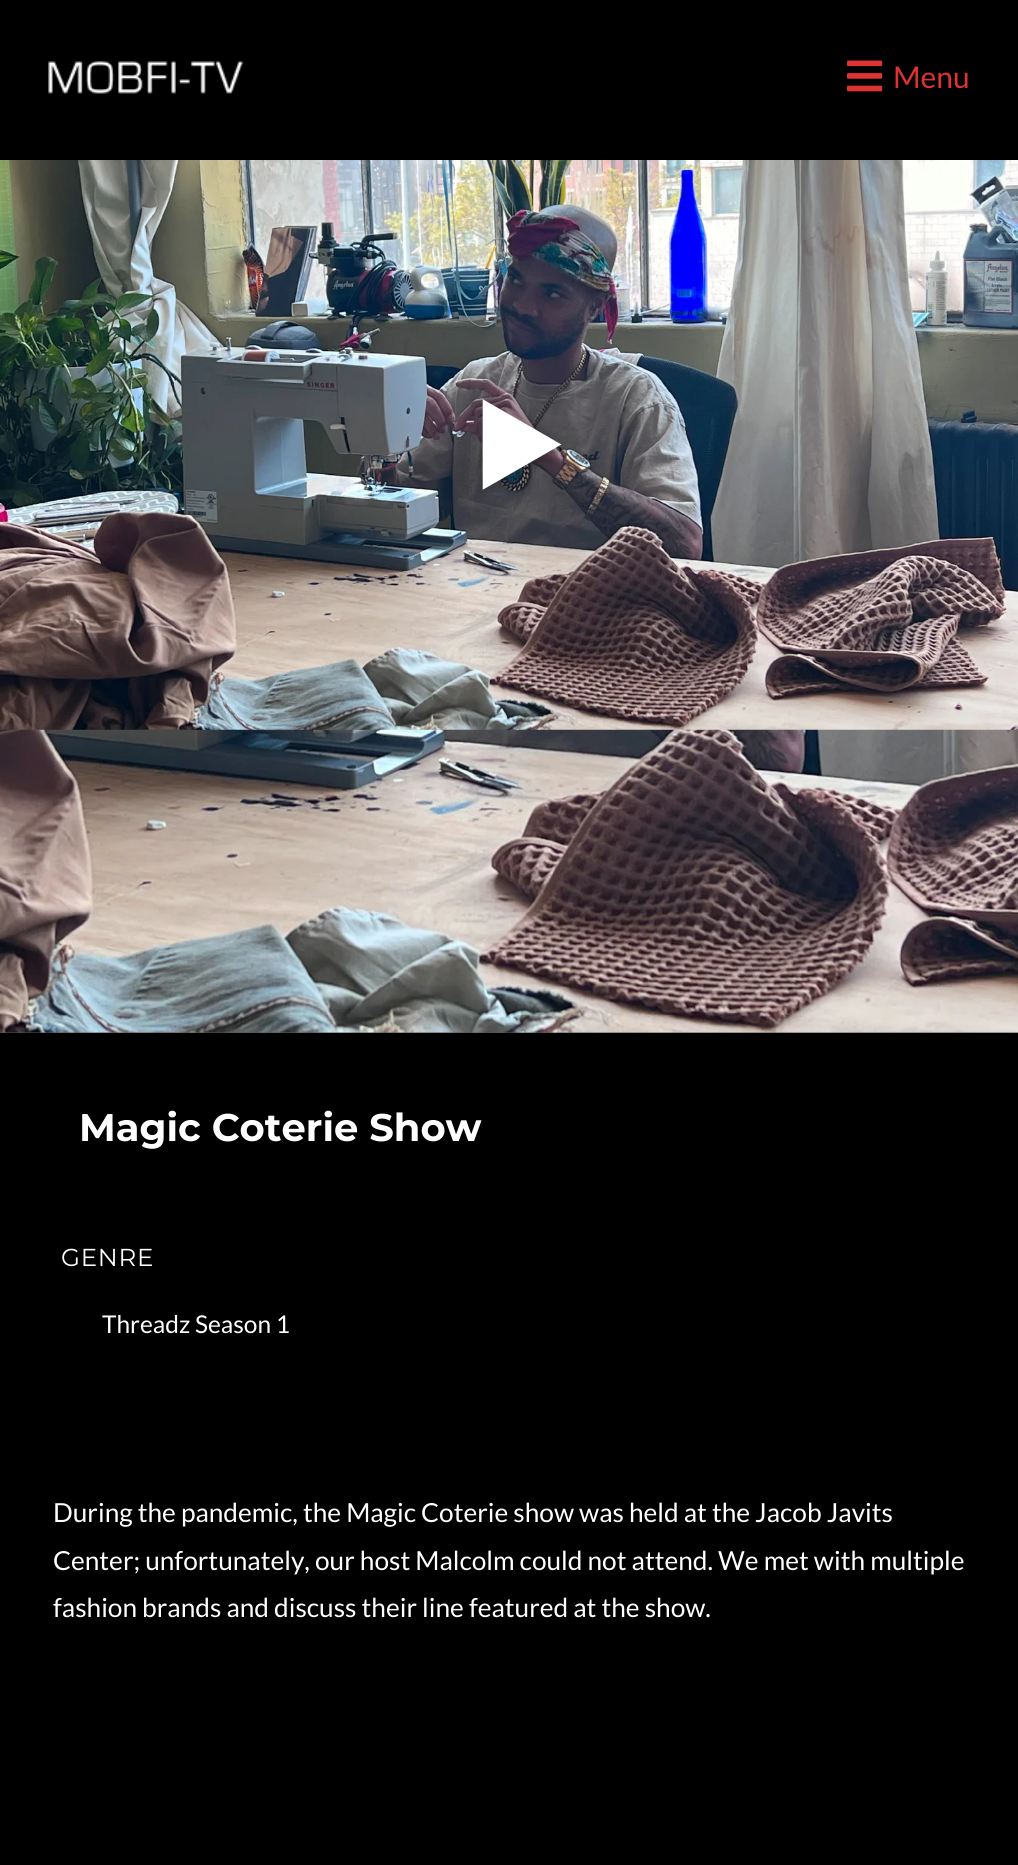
#include <cairo/cairo.h>
#include <math.h>
#include <stddef.h>


static void draw_spaced(cairo_t *cr, double x, double y, const char *s, double letter, double word) {
  cairo_move_to(cr, x, y);
  while (*s) {
    char ch[5] = {0};
    int n = 0;
    do ch[n++] = *s++; while ((*s & 0xC0) == 0x80);
    cairo_show_text(cr, ch);
    cairo_rel_move_to(cr, letter + word * (*ch == ' '), 0);
  }
}

static void draw_image(cairo_t *cr, const char *path, double x, double y, double w, double h) {
  cairo_surface_t *image = cairo_image_surface_create_from_png(path);
  cairo_save(cr);
  cairo_set_source_surface(cr, image, x, y);
  cairo_rectangle(cr, x, y, w, h);
  cairo_fill(cr);
  cairo_restore(cr);
  cairo_surface_destroy(image);
}

static void draw(cairo_t *cr) {
  cairo_set_source_rgb(cr, 0, 0, 0);
  cairo_paint(cr);
  draw_image(cr, "images/1.png", 48, 61, 196, 33);
  draw_image(cr, "images/2.png", 847, 60, 36, 32);
  cairo_set_source_rgb(cr, 85 / 255.0, 85 / 255.0, 85 / 255.0);
  cairo_rectangle(cr, 0, 1032, 1018, 1);
  cairo_fill(cr);
  draw_image(cr, "images/3.png", 0, 729, 1018, 304);
  draw_image(cr, "images/4.png", 0, 160, 1018, 570);
  draw_image(cr, "images/5.png", 469, 395, 99, 98);
  cairo_select_font_face(cr, "Lato", CAIRO_FONT_SLANT_NORMAL, CAIRO_FONT_WEIGHT_NORMAL);
  cairo_set_font_size(cr, 30);
  cairo_set_source_rgb(cr, 221 / 255.0, 51 / 255.0, 51 / 255.0);
  cairo_move_to(cr, 893, 88);
  cairo_show_text(cr, "Menu");
  cairo_select_font_face(cr, "Montserrat", CAIRO_FONT_SLANT_NORMAL, CAIRO_FONT_WEIGHT_BOLD);
  cairo_set_font_size(cr, 38.5);
  cairo_set_source_rgb(cr, 1, 1, 1);
  cairo_move_to(cr, 79, 1141);
  cairo_show_text(cr, "Magic Coterie Show");
  cairo_select_font_face(cr, "Montserrat", CAIRO_FONT_SLANT_NORMAL, CAIRO_FONT_WEIGHT_NORMAL);
  cairo_set_font_size(cr, 24.5);
  draw_spaced(cr, 61, 1266, "GENRE", 0.75, 0);
  cairo_select_font_face(cr, "Lato", CAIRO_FONT_SLANT_NORMAL, CAIRO_FONT_WEIGHT_NORMAL);
  cairo_move_to(cr, 102, 1333);
  cairo_show_text(cr, "Threadz Season 1");
  cairo_set_font_size(cr, 26.25);
  cairo_move_to(cr, 53, 1522);
  cairo_show_text(cr, "During the pandemic, the Magic Coterie show was held at the Jacob Javits");
  cairo_move_to(cr, 53, 1570);
  cairo_show_text(cr, "Center; unfortunately, our host Malcolm could not attend. We met with multiple");
  cairo_move_to(cr, 53, 1617);
  cairo_show_text(cr, "fashion brands and discuss their line featured at the show.");
}

int main(void) {
  cairo_surface_t *surface = cairo_image_surface_create(CAIRO_FORMAT_RGB24, 1018, 1865);
  cairo_t *cr = cairo_create(surface);
  cairo_font_options_t *options = cairo_font_options_create();
  cairo_font_options_set_hint_metrics(options, CAIRO_HINT_METRICS_OFF);
  cairo_font_options_set_hint_style(options, CAIRO_HINT_STYLE_NONE);
  cairo_set_font_options(cr, options);
  cairo_set_miter_limit(cr, 4);
  draw(cr);
  cairo_surface_write_to_png(surface, "out.png");
  cairo_font_options_destroy(options);
  cairo_destroy(cr);
  cairo_surface_destroy(surface);
  return 0;
}
